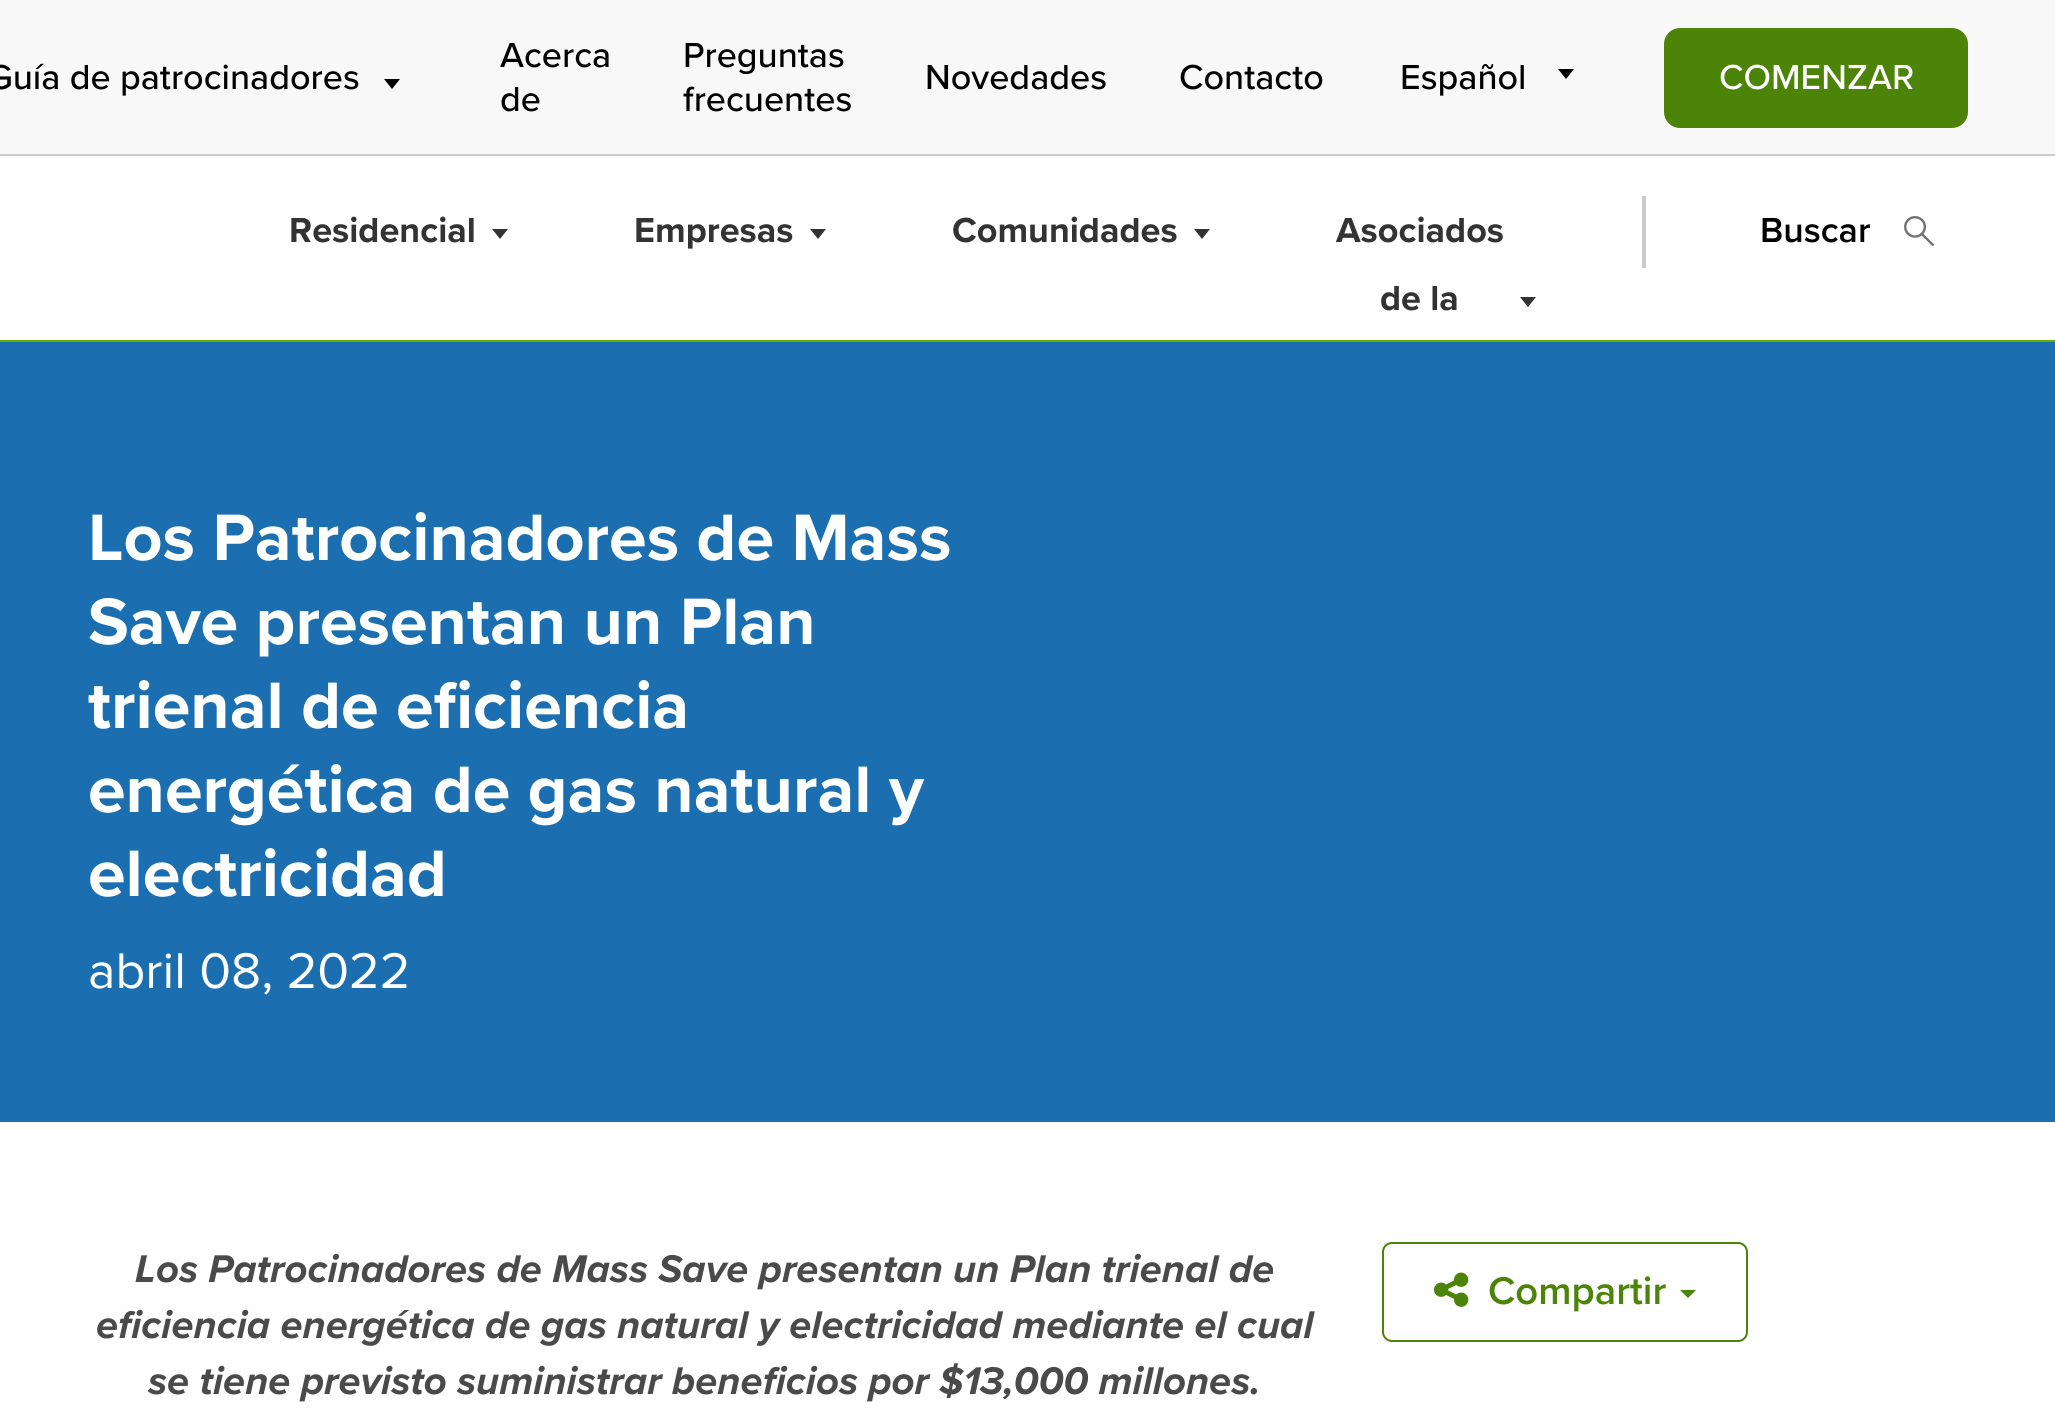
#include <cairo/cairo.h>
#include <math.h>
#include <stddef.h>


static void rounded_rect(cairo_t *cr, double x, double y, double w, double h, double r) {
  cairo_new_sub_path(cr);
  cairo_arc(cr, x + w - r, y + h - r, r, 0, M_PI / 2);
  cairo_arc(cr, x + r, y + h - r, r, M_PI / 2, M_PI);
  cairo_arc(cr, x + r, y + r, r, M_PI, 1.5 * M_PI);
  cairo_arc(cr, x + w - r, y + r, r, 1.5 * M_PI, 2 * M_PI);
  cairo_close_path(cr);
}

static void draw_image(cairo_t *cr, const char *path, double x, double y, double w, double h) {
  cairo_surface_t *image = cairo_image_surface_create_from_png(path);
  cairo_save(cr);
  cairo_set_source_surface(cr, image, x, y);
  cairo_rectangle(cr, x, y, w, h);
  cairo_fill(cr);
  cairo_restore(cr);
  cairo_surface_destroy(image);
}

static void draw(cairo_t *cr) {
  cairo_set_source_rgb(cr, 1, 1, 1);
  cairo_paint(cr);
  cairo_set_source_rgb(cr, 100 / 255.0, 176 / 255.0, 6 / 255.0);
  cairo_rectangle(cr, 0, 340, 2055, 2);
  cairo_fill(cr);
  cairo_set_source_rgb(cr, 248 / 255.0, 248 / 255.0, 248 / 255.0);
  cairo_rectangle(cr, 0, 0, 2055, 154);
  cairo_fill(cr);
  cairo_set_source_rgb(cr, 203 / 255.0, 203 / 255.0, 203 / 255.0);
  cairo_rectangle(cr, 0, 154, 2055, 2);
  cairo_fill(cr);
  cairo_set_source_rgb(cr, 0, 0, 0);
  cairo_new_path(cr);
  cairo_move_to(cr, 392, 89);
  cairo_line_to(cr, 384, 79);
  cairo_line_to(cr, 400, 79);
  cairo_close_path(cr);
  cairo_fill(cr);
  cairo_new_path(cr);
  cairo_move_to(cr, 1566, 79);
  cairo_line_to(cr, 1558, 69);
  cairo_line_to(cr, 1574, 69);
  cairo_close_path(cr);
  cairo_fill(cr);
  cairo_set_source_rgb(cr, 75 / 255.0, 132 / 255.0, 6 / 255.0);
  rounded_rect(cr, 1666, 30, 300, 96, 14);
  cairo_fill_preserve(cr);
  cairo_set_line_width(cr, 4);
  cairo_stroke(cr);
  cairo_set_source_rgb(cr, 51 / 255.0, 51 / 255.0, 51 / 255.0);
  cairo_new_path(cr);
  cairo_move_to(cr, 500, 239);
  cairo_line_to(cr, 492, 229);
  cairo_line_to(cr, 508, 229);
  cairo_close_path(cr);
  cairo_fill(cr);
  cairo_new_path(cr);
  cairo_move_to(cr, 818, 239);
  cairo_line_to(cr, 810, 229);
  cairo_line_to(cr, 826, 229);
  cairo_close_path(cr);
  cairo_fill(cr);
  cairo_new_path(cr);
  cairo_move_to(cr, 1202, 239);
  cairo_line_to(cr, 1194, 229);
  cairo_line_to(cr, 1210, 229);
  cairo_close_path(cr);
  cairo_fill(cr);
  cairo_new_path(cr);
  cairo_move_to(cr, 1528, 307);
  cairo_line_to(cr, 1520, 297);
  cairo_line_to(cr, 1536, 297);
  cairo_close_path(cr);
  cairo_fill(cr);
  cairo_set_source_rgb(cr, 203 / 255.0, 203 / 255.0, 203 / 255.0);
  cairo_rectangle(cr, 1642, 196, 4, 72);
  cairo_fill(cr);
  draw_image(cr, "images/1.png", 1904, 216, 30, 30);
  cairo_set_source_rgb(cr, 27 / 255.0, 111 / 255.0, 176 / 255.0);
  cairo_rectangle(cr, 0, 342, 2055, 780);
  cairo_fill(cr);
  rounded_rect(cr, 1383, 1243, 364, 98, 9);
  cairo_set_source_rgb(cr, 75 / 255.0, 132 / 255.0, 6 / 255.0);
  cairo_set_line_width(cr, 2);
  cairo_stroke(cr);
  draw_image(cr, "images/2.png", 1434, 1272, 35, 35);
  cairo_new_path(cr);
  cairo_move_to(cr, 1680, 1290);
  cairo_line_to(cr, 1696, 1290);
  cairo_line_to(cr, 1688, 1298);
  cairo_close_path(cr);
  cairo_fill(cr);
  cairo_select_font_face(cr, "Proxima Nova Medium", CAIRO_FONT_SLANT_NORMAL, CAIRO_FONT_WEIGHT_NORMAL);
  cairo_set_font_size(cr, 36);
  cairo_set_source_rgb(cr, 0, 0, 0);
  cairo_move_to(cr, -13, 89);
  cairo_show_text(cr, "Guía de patrocinadores");
  cairo_move_to(cr, 500, 67);
  cairo_show_text(cr, "Acerca");
  cairo_move_to(cr, 500, 111);
  cairo_show_text(cr, "de");
  cairo_move_to(cr, 683, 67);
  cairo_show_text(cr, "Preguntas");
  cairo_move_to(cr, 683, 111);
  cairo_show_text(cr, "frecuentes");
  cairo_move_to(cr, 925, 89);
  cairo_show_text(cr, "Novedades");
  cairo_move_to(cr, 1179, 89);
  cairo_show_text(cr, "Contacto");
  cairo_move_to(cr, 1400, 89);
  cairo_show_text(cr, "Español");
  cairo_set_source_rgb(cr, 1, 1, 1);
  cairo_move_to(cr, 1719, 89);
  cairo_show_text(cr, "COMENZAR");
  cairo_select_font_face(cr, "Proxima Nova", CAIRO_FONT_SLANT_NORMAL, CAIRO_FONT_WEIGHT_BOLD);
  cairo_set_source_rgb(cr, 51 / 255.0, 51 / 255.0, 51 / 255.0);
  cairo_move_to(cr, 289, 242);
  cairo_show_text(cr, "Residencial");
  cairo_move_to(cr, 634, 242);
  cairo_show_text(cr, "Empresas");
  cairo_move_to(cr, 952, 242);
  cairo_show_text(cr, "Comunidades");
  cairo_move_to(cr, 1336, 242);
  cairo_show_text(cr, "Asociados");
  cairo_move_to(cr, 1380, 310);
  cairo_show_text(cr, "de la");
  cairo_select_font_face(cr, "Proxima Nova SemiBold", CAIRO_FONT_SLANT_NORMAL, CAIRO_FONT_WEIGHT_NORMAL);
  cairo_set_source_rgb(cr, 0, 0, 0);
  cairo_move_to(cr, 1760, 242);
  cairo_show_text(cr, "Buscar");
  cairo_select_font_face(cr, "Proxima Nova", CAIRO_FONT_SLANT_NORMAL, CAIRO_FONT_WEIGHT_BOLD);
  cairo_set_font_size(cr, 68);
  cairo_set_source_rgb(cr, 1, 1, 1);
  cairo_move_to(cr, 88, 560);
  cairo_show_text(cr, "Los Patrocinadores de Mass");
  cairo_move_to(cr, 88, 644);
  cairo_show_text(cr, "Save presentan un Plan");
  cairo_move_to(cr, 88, 728);
  cairo_show_text(cr, "trienal de eficiencia");
  cairo_move_to(cr, 88, 812);
  cairo_show_text(cr, "energética de gas natural y");
  cairo_move_to(cr, 88, 896);
  cairo_show_text(cr, "electricidad");
  cairo_select_font_face(cr, "Proxima Nova", CAIRO_FONT_SLANT_NORMAL, CAIRO_FONT_WEIGHT_NORMAL);
  cairo_set_font_size(cr, 52);
  cairo_move_to(cr, 88, 988);
  cairo_show_text(cr, "abril 08, 2022");
  cairo_select_font_face(cr, "Proxima Nova", CAIRO_FONT_SLANT_ITALIC, CAIRO_FONT_WEIGHT_BOLD);
  cairo_set_font_size(cr, 40);
  cairo_set_source_rgb(cr, 74 / 255.0, 74 / 255.0, 74 / 255.0);
  cairo_move_to(cr, 135, 1282);
  cairo_show_text(cr, "Los Patrocinadores de Mass Save presentan un Plan trienal de");
  cairo_move_to(cr, 96, 1338);
  cairo_show_text(cr, "eficiencia energética de gas natural y electricidad mediante el cual");
  cairo_move_to(cr, 148, 1394);
  cairo_show_text(cr, "se tiene previsto suministrar beneficios por $13,000 millones.");
  cairo_select_font_face(cr, "Proxima Nova SemiBold", CAIRO_FONT_SLANT_NORMAL, CAIRO_FONT_WEIGHT_NORMAL);
  cairo_set_source_rgb(cr, 75 / 255.0, 132 / 255.0, 6 / 255.0);
  cairo_move_to(cr, 1488, 1304);
  cairo_show_text(cr, "Compartir");
}

int main(void) {
  cairo_surface_t *surface = cairo_image_surface_create(CAIRO_FORMAT_RGB24, 2055, 1426);
  cairo_t *cr = cairo_create(surface);
  cairo_font_options_t *options = cairo_font_options_create();
  cairo_font_options_set_hint_metrics(options, CAIRO_HINT_METRICS_OFF);
  cairo_font_options_set_hint_style(options, CAIRO_HINT_STYLE_NONE);
  cairo_set_font_options(cr, options);
  cairo_set_miter_limit(cr, 4);
  draw(cr);
  cairo_surface_write_to_png(surface, "out.png");
  cairo_font_options_destroy(options);
  cairo_destroy(cr);
  cairo_surface_destroy(surface);
  return 0;
}
